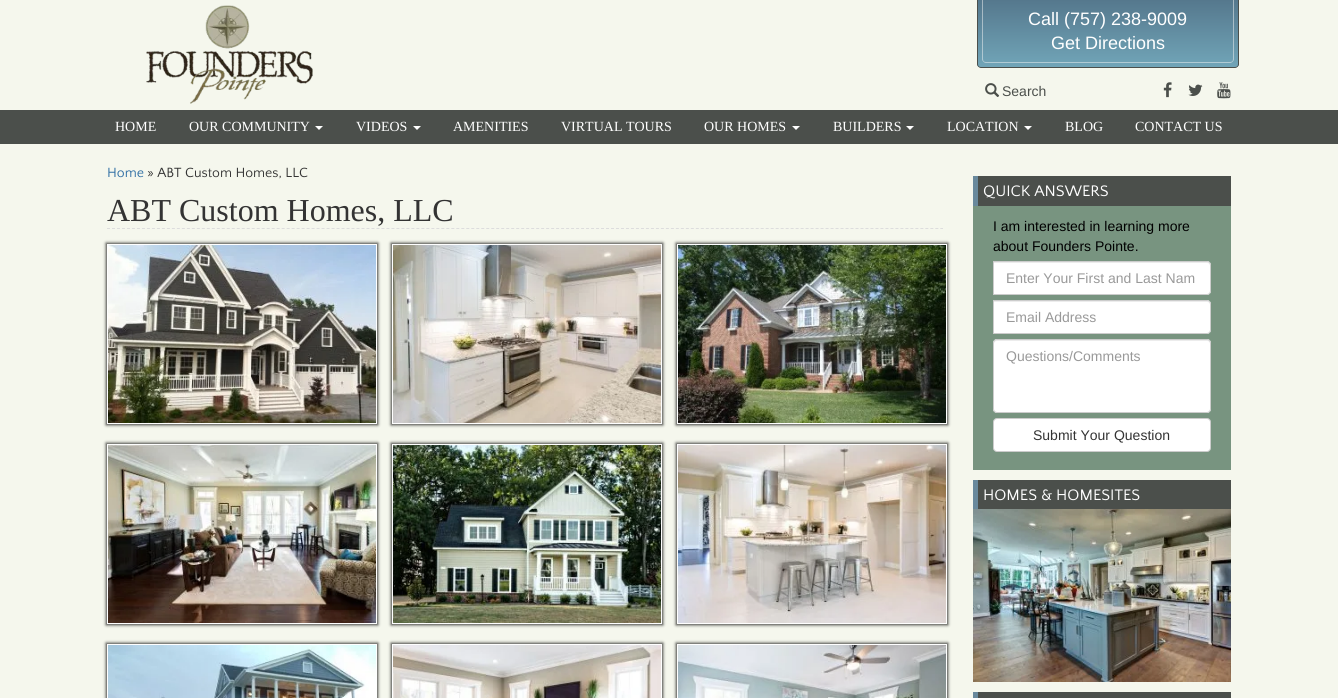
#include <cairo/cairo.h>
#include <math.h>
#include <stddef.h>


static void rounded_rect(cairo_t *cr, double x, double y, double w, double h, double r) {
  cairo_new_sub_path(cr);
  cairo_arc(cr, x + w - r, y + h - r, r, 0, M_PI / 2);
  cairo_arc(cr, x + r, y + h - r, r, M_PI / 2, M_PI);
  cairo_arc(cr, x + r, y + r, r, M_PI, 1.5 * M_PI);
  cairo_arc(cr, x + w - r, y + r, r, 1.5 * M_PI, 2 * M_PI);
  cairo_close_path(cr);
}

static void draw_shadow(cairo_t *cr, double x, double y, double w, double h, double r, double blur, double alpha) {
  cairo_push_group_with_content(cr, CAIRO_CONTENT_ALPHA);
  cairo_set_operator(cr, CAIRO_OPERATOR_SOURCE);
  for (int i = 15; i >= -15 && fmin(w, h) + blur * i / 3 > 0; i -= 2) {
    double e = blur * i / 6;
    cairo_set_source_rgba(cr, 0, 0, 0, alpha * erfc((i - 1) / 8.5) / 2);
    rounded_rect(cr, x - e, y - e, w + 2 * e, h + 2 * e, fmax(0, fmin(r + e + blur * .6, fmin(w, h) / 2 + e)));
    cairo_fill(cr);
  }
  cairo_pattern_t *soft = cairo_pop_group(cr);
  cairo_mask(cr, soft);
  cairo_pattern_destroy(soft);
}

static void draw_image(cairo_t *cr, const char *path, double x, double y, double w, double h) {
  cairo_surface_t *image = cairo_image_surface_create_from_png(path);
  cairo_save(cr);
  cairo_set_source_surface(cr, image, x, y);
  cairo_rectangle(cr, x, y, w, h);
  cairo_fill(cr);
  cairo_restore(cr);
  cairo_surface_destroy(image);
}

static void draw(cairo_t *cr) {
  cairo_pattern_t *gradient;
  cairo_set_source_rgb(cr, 245 / 255.0, 247 / 255.0, 237 / 255.0);
  cairo_paint(cr);
  draw_image(cr, "images/1.png", 146, 5, 167, 99);
  cairo_save(cr);
  cairo_new_path(cr);
  cairo_move_to(cr, 977, 0);
  cairo_line_to(cr, 1239, 0);
  cairo_line_to(cr, 1239, 64);
  cairo_curve_to(cr, 1239, 66, 1237, 68, 1235, 68);
  cairo_line_to(cr, 981, 68);
  cairo_curve_to(cr, 979, 68, 977, 66, 977, 64);
  cairo_close_path(cr);
  cairo_clip(cr);
  gradient = cairo_pattern_create_linear(1108, 0, 1108, 67);
  cairo_pattern_add_color_stop_rgba(gradient, 0, 85 / 255.0, 120 / 255.0, 141 / 255.0, 1);
  cairo_pattern_add_color_stop_rgba(gradient, 1, 113 / 255.0, 165 / 255.0, 184 / 255.0, 1);
  cairo_set_source(cr, gradient);
  cairo_pattern_destroy(gradient);
  cairo_rectangle(cr, 977, 0, 262, 67);
  cairo_fill(cr);
  cairo_restore(cr);
  cairo_set_source_rgb(cr, 75 / 255.0, 79 / 255.0, 75 / 255.0);
  cairo_set_fill_rule(cr, CAIRO_FILL_RULE_EVEN_ODD);
  cairo_new_path(cr);
  cairo_move_to(cr, 977, 0);
  cairo_line_to(cr, 1239, 0);
  cairo_line_to(cr, 1239, 64);
  cairo_curve_to(cr, 1239, 66, 1237, 68, 1235, 68);
  cairo_line_to(cr, 981, 68);
  cairo_curve_to(cr, 979, 68, 977, 66, 977, 64);
  cairo_close_path(cr);
  cairo_move_to(cr, 978, 0);
  cairo_line_to(cr, 1238, 0);
  cairo_line_to(cr, 1238, 64);
  cairo_curve_to(cr, 1238, 66, 1237, 67, 1235, 67);
  cairo_line_to(cr, 981, 67);
  cairo_curve_to(cr, 979, 67, 978, 66, 978, 64);
  cairo_close_path(cr);
  cairo_fill(cr);
  cairo_set_source_rgba(cr, 245 / 255.0, 245 / 255.0, 245 / 255.0, 0.5);
  cairo_new_path(cr);
  cairo_move_to(cr, 982, 0);
  cairo_line_to(cr, 1234, 0);
  cairo_line_to(cr, 1234, 59);
  cairo_curve_to(cr, 1234, 61, 1232, 63, 1230, 63);
  cairo_line_to(cr, 986, 63);
  cairo_curve_to(cr, 984, 63, 982, 61, 982, 59);
  cairo_close_path(cr);
  cairo_move_to(cr, 983, 0);
  cairo_line_to(cr, 1233, 0);
  cairo_line_to(cr, 1233, 59);
  cairo_curve_to(cr, 1233, 61, 1232, 62, 1230, 62);
  cairo_line_to(cr, 986, 62);
  cairo_curve_to(cr, 984, 62, 983, 61, 983, 59);
  cairo_close_path(cr);
  cairo_fill(cr);
  draw_image(cr, "images/2.png", 985, 83, 15, 14);
  draw_image(cr, "images/3.png", 1163, 82, 9, 16);
  draw_image(cr, "images/4.png", 1188, 84, 15, 12);
  draw_image(cr, "images/5.png", 1217, 82, 14, 17);
  cairo_set_source_rgb(cr, 75 / 255.0, 79 / 255.0, 75 / 255.0);
  cairo_rectangle(cr, 0, 110, 1338, 34);
  cairo_fill(cr);
  cairo_set_source_rgb(cr, 1, 1, 1);
  cairo_set_fill_rule(cr, CAIRO_FILL_RULE_WINDING);
  cairo_new_path(cr);
  cairo_move_to(cr, 315, 126);
  cairo_line_to(cr, 323, 126);
  cairo_line_to(cr, 319, 130);
  cairo_close_path(cr);
  cairo_fill(cr);
  cairo_new_path(cr);
  cairo_move_to(cr, 413, 126);
  cairo_line_to(cr, 421, 126);
  cairo_line_to(cr, 417, 130);
  cairo_close_path(cr);
  cairo_fill(cr);
  cairo_new_path(cr);
  cairo_move_to(cr, 792, 126);
  cairo_line_to(cr, 800, 126);
  cairo_line_to(cr, 796, 130);
  cairo_close_path(cr);
  cairo_fill(cr);
  cairo_new_path(cr);
  cairo_move_to(cr, 906, 126);
  cairo_line_to(cr, 914, 126);
  cairo_line_to(cr, 910, 130);
  cairo_close_path(cr);
  cairo_fill(cr);
  cairo_new_path(cr);
  cairo_move_to(cr, 1024, 126);
  cairo_line_to(cr, 1032, 126);
  cairo_line_to(cr, 1028, 130);
  cairo_close_path(cr);
  cairo_fill(cr);
  cairo_new_path(cr);
  cairo_move_to(cr, 107, 228.5);
  cairo_line_to(cr, 943, 228.5);
  cairo_set_source_rgb(cr, 221 / 255.0, 221 / 255.0, 221 / 255.0);
  cairo_set_line_width(cr, 1);
  cairo_set_dash(cr, (double[]){3, 1.99}, 2, 0);
  cairo_stroke(cr);
  cairo_set_source_rgb(cr, 0, 0, 0);
  draw_shadow(cr, 106, 243, 272, 182, 0, 1.5, 0.75);
  cairo_set_source_rgb(cr, 1, 1, 1);
  cairo_rectangle(cr, 107, 244, 270, 180);
  cairo_fill(cr);
  draw_image(cr, "images/6.png", 108, 245, 268, 178);
  cairo_set_source_rgb(cr, 0, 0, 0);
  draw_shadow(cr, 391, 243, 272, 182, 0, 1.5, 0.75);
  cairo_set_source_rgb(cr, 1, 1, 1);
  cairo_rectangle(cr, 392, 244, 270, 180);
  cairo_fill(cr);
  draw_image(cr, "images/7.png", 393, 245, 268, 178);
  cairo_set_source_rgb(cr, 0, 0, 0);
  draw_shadow(cr, 676, 243, 272, 182, 0, 1.5, 0.75);
  cairo_set_source_rgb(cr, 1, 1, 1);
  cairo_rectangle(cr, 677, 244, 270, 180);
  cairo_fill(cr);
  draw_image(cr, "images/8.png", 678, 245, 268, 178);
  cairo_set_source_rgb(cr, 0, 0, 0);
  draw_shadow(cr, 106, 443, 272, 182, 0, 1.5, 0.75);
  cairo_set_source_rgb(cr, 1, 1, 1);
  cairo_rectangle(cr, 107, 444, 270, 180);
  cairo_fill(cr);
  draw_image(cr, "images/9.png", 108, 445, 268, 178);
  cairo_set_source_rgb(cr, 0, 0, 0);
  draw_shadow(cr, 391, 443, 272, 182, 0, 1.5, 0.75);
  cairo_set_source_rgb(cr, 1, 1, 1);
  cairo_rectangle(cr, 392, 444, 270, 180);
  cairo_fill(cr);
  draw_image(cr, "images/10.png", 393, 445, 268, 178);
  cairo_set_source_rgb(cr, 0, 0, 0);
  draw_shadow(cr, 676, 443, 272, 182, 0, 1.5, 0.75);
  cairo_set_source_rgb(cr, 1, 1, 1);
  cairo_rectangle(cr, 677, 444, 270, 180);
  cairo_fill(cr);
  draw_image(cr, "images/11.png", 678, 445, 268, 178);
  cairo_set_source_rgb(cr, 0, 0, 0);
  draw_shadow(cr, 106, 643, 272, 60, 0, 1.5, 0.75);
  cairo_set_source_rgb(cr, 1, 1, 1);
  cairo_rectangle(cr, 107, 644, 270, 54);
  cairo_fill(cr);
  draw_image(cr, "images/12.png", 108, 645, 268, 53);
  cairo_set_source_rgb(cr, 0, 0, 0);
  draw_shadow(cr, 391, 643, 272, 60, 0, 1.5, 0.75);
  cairo_set_source_rgb(cr, 1, 1, 1);
  cairo_rectangle(cr, 392, 644, 270, 54);
  cairo_fill(cr);
  draw_image(cr, "images/13.png", 393, 645, 268, 53);
  cairo_set_source_rgb(cr, 0, 0, 0);
  draw_shadow(cr, 676, 643, 272, 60, 0, 1.5, 0.75);
  cairo_set_source_rgb(cr, 1, 1, 1);
  cairo_rectangle(cr, 677, 644, 270, 54);
  cairo_fill(cr);
  draw_image(cr, "images/14.png", 678, 645, 268, 53);
  cairo_set_source_rgb(cr, 75 / 255.0, 79 / 255.0, 75 / 255.0);
  cairo_rectangle(cr, 978, 176, 253, 30);
  cairo_fill(cr);
  cairo_set_source_rgb(cr, 105 / 255.0, 137 / 255.0, 156 / 255.0);
  cairo_rectangle(cr, 973, 176, 5, 30);
  cairo_fill(cr);
  cairo_set_source_rgb(cr, 120 / 255.0, 148 / 255.0, 128 / 255.0);
  cairo_rectangle(cr, 973, 206, 258, 264);
  cairo_fill(cr);
  cairo_set_source_rgb(cr, 1, 1, 1);
  cairo_new_path(cr);
  cairo_move_to(cr, 993, 261);
  cairo_line_to(cr, 1207, 261);
  cairo_curve_to(cr, 1209, 261, 1211, 263, 1211, 265);
  cairo_line_to(cr, 1211, 291);
  cairo_curve_to(cr, 1211, 293, 1209, 295, 1207, 295);
  cairo_line_to(cr, 993, 295);
  cairo_close_path(cr);
  cairo_fill(cr);
  cairo_set_source_rgb(cr, 236 / 255.0, 236 / 255.0, 236 / 255.0);
  cairo_new_path(cr);
  cairo_move_to(cr, 994, 263);
  cairo_line_to(cr, 1207, 263);
  cairo_curve_to(cr, 1209, 263, 1210, 264, 1210, 266);
  cairo_line_to(cr, 1210, 265);
  cairo_curve_to(cr, 1210, 263, 1209, 262, 1207, 262);
  cairo_line_to(cr, 994, 262);
  cairo_close_path(cr);
  cairo_fill(cr);
  cairo_new_path(cr);
  cairo_move_to(cr, 993.5, 261.5);
  cairo_line_to(cr, 1207, 261.5);
  cairo_curve_to(cr, 1209, 261.5, 1210.5, 263, 1210.5, 265);
  cairo_line_to(cr, 1210.5, 291);
  cairo_curve_to(cr, 1210.5, 293, 1209, 294.5, 1207, 294.5);
  cairo_line_to(cr, 993.5, 294.5);
  cairo_close_path(cr);
  cairo_set_source_rgb(cr, 204 / 255.0, 204 / 255.0, 204 / 255.0);
  cairo_set_dash(cr, NULL, 0, 0);
  cairo_stroke(cr);
  cairo_set_source_rgb(cr, 1, 1, 1);
  cairo_new_path(cr);
  cairo_move_to(cr, 993, 300);
  cairo_line_to(cr, 1207, 300);
  cairo_curve_to(cr, 1209, 300, 1211, 302, 1211, 304);
  cairo_line_to(cr, 1211, 330);
  cairo_curve_to(cr, 1211, 332, 1209, 334, 1207, 334);
  cairo_line_to(cr, 993, 334);
  cairo_close_path(cr);
  cairo_fill(cr);
  cairo_set_source_rgb(cr, 236 / 255.0, 236 / 255.0, 236 / 255.0);
  cairo_new_path(cr);
  cairo_move_to(cr, 994, 302);
  cairo_line_to(cr, 1207, 302);
  cairo_curve_to(cr, 1209, 302, 1210, 303, 1210, 305);
  cairo_line_to(cr, 1210, 304);
  cairo_curve_to(cr, 1210, 302, 1209, 301, 1207, 301);
  cairo_line_to(cr, 994, 301);
  cairo_close_path(cr);
  cairo_fill(cr);
  cairo_new_path(cr);
  cairo_move_to(cr, 993.5, 300.5);
  cairo_line_to(cr, 1207, 300.5);
  cairo_curve_to(cr, 1209, 300.5, 1210.5, 302, 1210.5, 304);
  cairo_line_to(cr, 1210.5, 330);
  cairo_curve_to(cr, 1210.5, 332, 1209, 333.5, 1207, 333.5);
  cairo_line_to(cr, 993.5, 333.5);
  cairo_close_path(cr);
  cairo_set_source_rgb(cr, 204 / 255.0, 204 / 255.0, 204 / 255.0);
  cairo_stroke(cr);
  cairo_set_source_rgb(cr, 1, 1, 1);
  rounded_rect(cr, 993, 339, 218, 74, 4);
  cairo_fill(cr);
  cairo_set_source_rgb(cr, 236 / 255.0, 236 / 255.0, 236 / 255.0);
  cairo_new_path(cr);
  cairo_move_to(cr, 997, 341);
  cairo_line_to(cr, 1207, 341);
  cairo_curve_to(cr, 1209, 341, 1210, 342, 1210, 344);
  cairo_line_to(cr, 1210, 343);
  cairo_curve_to(cr, 1210, 341, 1209, 340, 1207, 340);
  cairo_line_to(cr, 997, 340);
  cairo_curve_to(cr, 995, 340, 994, 341, 994, 343);
  cairo_line_to(cr, 994, 344);
  cairo_curve_to(cr, 994, 342, 995, 341, 997, 341);
  cairo_close_path(cr);
  cairo_fill(cr);
  rounded_rect(cr, 993.5, 339.5, 217, 73, 3.5);
  cairo_set_source_rgb(cr, 204 / 255.0, 204 / 255.0, 204 / 255.0);
  cairo_stroke(cr);
  cairo_set_source_rgb(cr, 1, 1, 1);
  rounded_rect(cr, 993.5, 418.5, 217, 33, 3.5);
  cairo_fill_preserve(cr);
  cairo_set_source_rgb(cr, 204 / 255.0, 204 / 255.0, 204 / 255.0);
  cairo_stroke(cr);
  cairo_set_source_rgb(cr, 105 / 255.0, 137 / 255.0, 156 / 255.0);
  cairo_rectangle(cr, 973, 480, 5, 29);
  cairo_fill(cr);
  cairo_set_source_rgb(cr, 75 / 255.0, 79 / 255.0, 75 / 255.0);
  cairo_rectangle(cr, 978, 480, 253, 29);
  cairo_fill(cr);
  draw_image(cr, "images/15.png", 973, 509, 258, 173);
  cairo_set_source_rgb(cr, 105 / 255.0, 137 / 255.0, 156 / 255.0);
  cairo_rectangle(cr, 973, 692, 5, 6);
  cairo_fill(cr);
  cairo_set_source_rgb(cr, 75 / 255.0, 79 / 255.0, 75 / 255.0);
  cairo_rectangle(cr, 978, 692, 253, 6);
  cairo_fill(cr);
  cairo_select_font_face(cr, "Liberation Sans", CAIRO_FONT_SLANT_NORMAL, CAIRO_FONT_WEIGHT_NORMAL);
  cairo_set_font_size(cr, 18);
  cairo_set_source_rgb(cr, 1, 1, 1);
  cairo_move_to(cr, 1028, 25);
  cairo_show_text(cr, "Call (757) 238-9009");
  cairo_move_to(cr, 1051, 49);
  cairo_show_text(cr, "Get Directions");
  cairo_set_font_size(cr, 14);
  cairo_set_source_rgb(cr, 75 / 255.0, 79 / 255.0, 75 / 255.0);
  cairo_move_to(cr, 1002, 96);
  cairo_show_text(cr, "Search");
  cairo_select_font_face(cr, "Liberation Serif", CAIRO_FONT_SLANT_NORMAL, CAIRO_FONT_WEIGHT_NORMAL);
  cairo_set_source_rgb(cr, 1, 1, 1);
  cairo_move_to(cr, 115, 131);
  cairo_show_text(cr, "HOME");
  cairo_move_to(cr, 189, 131);
  cairo_show_text(cr, "OUR COMMUNITY");
  cairo_move_to(cr, 356, 131);
  cairo_show_text(cr, "VIDEOS");
  cairo_move_to(cr, 453, 131);
  cairo_show_text(cr, "AMENITIES");
  cairo_move_to(cr, 561, 131);
  cairo_show_text(cr, "VIRTUAL TOURS");
  cairo_move_to(cr, 704, 131);
  cairo_show_text(cr, "OUR HOMES");
  cairo_move_to(cr, 833, 131);
  cairo_show_text(cr, "BUILDERS");
  cairo_move_to(cr, 947, 131);
  cairo_show_text(cr, "LOCATION");
  cairo_move_to(cr, 1065, 131);
  cairo_show_text(cr, "BLOG");
  cairo_move_to(cr, 1135, 131);
  cairo_show_text(cr, "CONTACT US");
  cairo_select_font_face(cr, "Quattrocento Sans", CAIRO_FONT_SLANT_NORMAL, CAIRO_FONT_WEIGHT_NORMAL);
  cairo_set_source_rgb(cr, 45 / 255.0, 109 / 255.0, 163 / 255.0);
  cairo_move_to(cr, 107, 177);
  cairo_show_text(cr, "Home");
  cairo_set_source_rgb(cr, 51 / 255.0, 51 / 255.0, 51 / 255.0);
  cairo_move_to(cr, 147, 177);
  cairo_show_text(cr, "» ABT Custom Homes, LLC");
  cairo_select_font_face(cr, "Liberation Serif", CAIRO_FONT_SLANT_NORMAL, CAIRO_FONT_WEIGHT_NORMAL);
  cairo_set_font_size(cr, 32);
  cairo_move_to(cr, 107, 221);
  cairo_show_text(cr, "ABT Custom Homes, LLC");
  cairo_select_font_face(cr, "Quattrocento Sans", CAIRO_FONT_SLANT_NORMAL, CAIRO_FONT_WEIGHT_NORMAL);
  cairo_set_font_size(cr, 16);
  cairo_set_source_rgb(cr, 1, 1, 1);
  cairo_move_to(cr, 983, 196);
  cairo_show_text(cr, "QUICK ANSWERS");
  cairo_select_font_face(cr, "Liberation Sans", CAIRO_FONT_SLANT_NORMAL, CAIRO_FONT_WEIGHT_NORMAL);
  cairo_set_font_size(cr, 14);
  cairo_set_source_rgb(cr, 0, 0, 0);
  cairo_move_to(cr, 993, 231);
  cairo_show_text(cr, "I am interested in learning more");
  cairo_move_to(cr, 993, 251);
  cairo_show_text(cr, "about Founders Pointe.");
  cairo_set_source_rgb(cr, 153 / 255.0, 153 / 255.0, 153 / 255.0);
  cairo_move_to(cr, 1006, 283);
  cairo_show_text(cr, "Enter Your First and Last Nam");
  cairo_move_to(cr, 1006, 322);
  cairo_show_text(cr, "Email Address");
  cairo_move_to(cr, 1006, 361);
  cairo_show_text(cr, "Questions/Comments");
  cairo_set_source_rgb(cr, 51 / 255.0, 51 / 255.0, 51 / 255.0);
  cairo_move_to(cr, 1033, 440);
  cairo_show_text(cr, "Submit Your Question");
  cairo_select_font_face(cr, "Quattrocento Sans", CAIRO_FONT_SLANT_NORMAL, CAIRO_FONT_WEIGHT_NORMAL);
  cairo_set_font_size(cr, 16);
  cairo_set_source_rgb(cr, 1, 1, 1);
  cairo_move_to(cr, 983, 500);
  cairo_show_text(cr, "HOMES & HOMESITES");
}

int main(void) {
  cairo_surface_t *surface = cairo_image_surface_create(CAIRO_FORMAT_RGB24, 1338, 698);
  cairo_t *cr = cairo_create(surface);
  cairo_font_options_t *options = cairo_font_options_create();
  cairo_font_options_set_hint_metrics(options, CAIRO_HINT_METRICS_OFF);
  cairo_font_options_set_hint_style(options, CAIRO_HINT_STYLE_NONE);
  cairo_set_font_options(cr, options);
  cairo_set_miter_limit(cr, 4);
  draw(cr);
  cairo_surface_write_to_png(surface, "out.png");
  cairo_font_options_destroy(options);
  cairo_destroy(cr);
  cairo_surface_destroy(surface);
  return 0;
}
